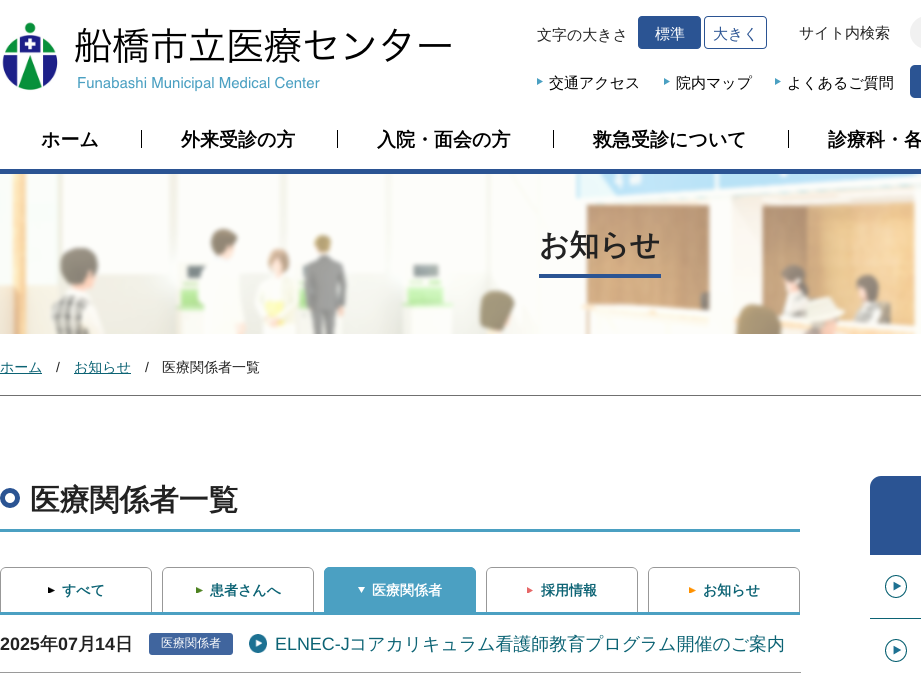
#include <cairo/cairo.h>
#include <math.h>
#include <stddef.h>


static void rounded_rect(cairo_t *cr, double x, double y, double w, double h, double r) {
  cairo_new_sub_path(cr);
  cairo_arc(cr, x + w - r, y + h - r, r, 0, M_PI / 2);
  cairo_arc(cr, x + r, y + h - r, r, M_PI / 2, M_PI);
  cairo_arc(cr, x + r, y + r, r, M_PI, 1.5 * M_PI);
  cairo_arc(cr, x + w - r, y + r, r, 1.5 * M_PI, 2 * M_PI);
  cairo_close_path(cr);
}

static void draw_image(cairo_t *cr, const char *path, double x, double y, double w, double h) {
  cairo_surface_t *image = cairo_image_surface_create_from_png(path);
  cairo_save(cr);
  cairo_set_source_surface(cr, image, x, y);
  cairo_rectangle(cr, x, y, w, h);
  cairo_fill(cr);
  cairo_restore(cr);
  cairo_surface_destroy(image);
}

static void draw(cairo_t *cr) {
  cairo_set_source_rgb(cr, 1, 1, 1);
  cairo_paint(cr);
  cairo_set_source_rgb(cr, 43 / 255.0, 84 / 255.0, 147 / 255.0);
  cairo_rectangle(cr, 0, 169, 921, 5);
  cairo_fill(cr);
  draw_image(cr, "images/1.png", 2, 22, 449, 70);
  cairo_set_source_rgb(cr, 241 / 255.0, 241 / 255.0, 241 / 255.0);
  cairo_new_path(cr);
  cairo_move_to(cr, 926.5, 16);
  cairo_line_to(cr, 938, 16);
  cairo_line_to(cr, 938, 49);
  cairo_line_to(cr, 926.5, 49);
  cairo_curve_to(cr, 917.5, 49, 910, 41.5, 910, 32.5);
  cairo_curve_to(cr, 910, 23.5, 917.5, 16, 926.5, 16);
  cairo_close_path(cr);
  cairo_fill(cr);
  draw_image(cr, "images/2.png", 537, 78, 6, 7);
  draw_image(cr, "images/2.png", 664, 78, 6, 7);
  draw_image(cr, "images/2.png", 775, 78, 6, 7);
  cairo_set_source_rgb(cr, 43 / 255.0, 84 / 255.0, 147 / 255.0);
  rounded_rect(cr, 910, 65, 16, 33, 5);
  cairo_fill(cr);
  cairo_set_source_rgb(cr, 0, 0, 0);
  cairo_rectangle(cr, 141, 130, 1, 18);
  cairo_fill(cr);
  cairo_rectangle(cr, 337, 130, 1, 18);
  cairo_fill(cr);
  cairo_rectangle(cr, 553, 130, 1, 18);
  cairo_fill(cr);
  cairo_rectangle(cr, 788, 130, 1, 18);
  cairo_fill(cr);
  cairo_set_source_rgb(cr, 43 / 255.0, 84 / 255.0, 147 / 255.0);
  rounded_rect(cr, 638.5, 16.5, 62, 32, 3.5);
  cairo_fill_preserve(cr);
  cairo_set_line_width(cr, 1);
  cairo_stroke(cr);
  rounded_rect(cr, 704.5, 16.5, 62, 32, 3.5);
  cairo_stroke(cr);
  cairo_set_source_rgb(cr, 112 / 255.0, 112 / 255.0, 112 / 255.0);
  cairo_rectangle(cr, 0, 395, 921, 1);
  cairo_fill(cr);
  draw_image(cr, "images/3.png", 0, 174, 921, 160);
  cairo_set_source_rgb(cr, 43 / 255.0, 84 / 255.0, 147 / 255.0);
  cairo_rectangle(cr, 539, 274, 122, 4);
  cairo_fill(cr);
  cairo_set_source_rgb(cr, 12 / 255.0, 99 / 255.0, 116 / 255.0);
  cairo_rectangle(cr, 0, 373, 42, 1);
  cairo_fill(cr);
  cairo_rectangle(cr, 74, 373, 57, 1);
  cairo_fill(cr);
  draw_image(cr, "images/4.png", 0, 488, 20, 20);
  cairo_set_source_rgb(cr, 75 / 255.0, 160 / 255.0, 194 / 255.0);
  cairo_rectangle(cr, 0, 529, 800, 3);
  cairo_fill(cr);
  cairo_set_source_rgb(cr, 152 / 255.0, 152 / 255.0, 152 / 255.0);
  cairo_set_fill_rule(cr, CAIRO_FILL_RULE_EVEN_ODD);
  cairo_new_path(cr);
  cairo_move_to(cr, 6, 567);
  cairo_line_to(cr, 146, 567);
  cairo_curve_to(cr, 149, 567, 152, 570, 152, 573);
  cairo_line_to(cr, 152, 612);
  cairo_line_to(cr, 0, 612);
  cairo_line_to(cr, 0, 573);
  cairo_curve_to(cr, 0, 570, 3, 567, 6, 567);
  cairo_close_path(cr);
  cairo_move_to(cr, 6, 568);
  cairo_line_to(cr, 146, 568);
  cairo_curve_to(cr, 149, 568, 151, 570, 151, 573);
  cairo_line_to(cr, 151, 612);
  cairo_line_to(cr, 1, 612);
  cairo_line_to(cr, 1, 573);
  cairo_curve_to(cr, 1, 570, 3, 568, 6, 568);
  cairo_close_path(cr);
  cairo_fill(cr);
  draw_image(cr, "images/5.png", 48, 587, 7, 6);
  cairo_new_path(cr);
  cairo_move_to(cr, 168, 567);
  cairo_line_to(cr, 308, 567);
  cairo_curve_to(cr, 311, 567, 314, 570, 314, 573);
  cairo_line_to(cr, 314, 612);
  cairo_line_to(cr, 162, 612);
  cairo_line_to(cr, 162, 573);
  cairo_curve_to(cr, 162, 570, 165, 567, 168, 567);
  cairo_close_path(cr);
  cairo_move_to(cr, 168, 568);
  cairo_line_to(cr, 308, 568);
  cairo_curve_to(cr, 311, 568, 313, 570, 313, 573);
  cairo_line_to(cr, 313, 612);
  cairo_line_to(cr, 163, 612);
  cairo_line_to(cr, 163, 573);
  cairo_curve_to(cr, 163, 570, 165, 568, 168, 568);
  cairo_close_path(cr);
  cairo_fill(cr);
  draw_image(cr, "images/6.png", 196, 587, 7, 6);
  cairo_set_source_rgb(cr, 75 / 255.0, 160 / 255.0, 194 / 255.0);
  cairo_new_path(cr);
  cairo_move_to(cr, 330, 567);
  cairo_line_to(cr, 470, 567);
  cairo_curve_to(cr, 473.5, 567, 476, 569.5, 476, 573);
  cairo_line_to(cr, 476, 612);
  cairo_line_to(cr, 324, 612);
  cairo_line_to(cr, 324, 573);
  cairo_curve_to(cr, 324, 569.5, 326.5, 567, 330, 567);
  cairo_close_path(cr);
  cairo_fill(cr);
  cairo_new_path(cr);
  cairo_move_to(cr, 330, 567);
  cairo_line_to(cr, 470, 567);
  cairo_curve_to(cr, 473, 567, 476, 570, 476, 573);
  cairo_line_to(cr, 476, 612);
  cairo_line_to(cr, 324, 612);
  cairo_line_to(cr, 324, 573);
  cairo_curve_to(cr, 324, 570, 327, 567, 330, 567);
  cairo_close_path(cr);
  cairo_move_to(cr, 330, 568);
  cairo_line_to(cr, 470, 568);
  cairo_curve_to(cr, 473, 568, 475, 570, 475, 573);
  cairo_line_to(cr, 475, 612);
  cairo_line_to(cr, 325, 612);
  cairo_line_to(cr, 325, 573);
  cairo_curve_to(cr, 325, 570, 327, 568, 330, 568);
  cairo_close_path(cr);
  cairo_fill(cr);
  draw_image(cr, "images/7.png", 358, 587, 7, 6);
  cairo_set_source_rgb(cr, 152 / 255.0, 152 / 255.0, 152 / 255.0);
  cairo_new_path(cr);
  cairo_move_to(cr, 492, 567);
  cairo_line_to(cr, 632, 567);
  cairo_curve_to(cr, 635, 567, 638, 570, 638, 573);
  cairo_line_to(cr, 638, 612);
  cairo_line_to(cr, 486, 612);
  cairo_line_to(cr, 486, 573);
  cairo_curve_to(cr, 486, 570, 489, 567, 492, 567);
  cairo_close_path(cr);
  cairo_move_to(cr, 492, 568);
  cairo_line_to(cr, 632, 568);
  cairo_curve_to(cr, 635, 568, 637, 570, 637, 573);
  cairo_line_to(cr, 637, 612);
  cairo_line_to(cr, 487, 612);
  cairo_line_to(cr, 487, 573);
  cairo_curve_to(cr, 487, 570, 489, 568, 492, 568);
  cairo_close_path(cr);
  cairo_fill(cr);
  draw_image(cr, "images/8.png", 527, 587, 6, 6);
  cairo_new_path(cr);
  cairo_move_to(cr, 654, 567);
  cairo_line_to(cr, 794, 567);
  cairo_curve_to(cr, 797, 567, 800, 570, 800, 573);
  cairo_line_to(cr, 800, 612);
  cairo_line_to(cr, 648, 612);
  cairo_line_to(cr, 648, 573);
  cairo_curve_to(cr, 648, 570, 651, 567, 654, 567);
  cairo_close_path(cr);
  cairo_move_to(cr, 654, 568);
  cairo_line_to(cr, 794, 568);
  cairo_curve_to(cr, 797, 568, 799, 570, 799, 573);
  cairo_line_to(cr, 799, 612);
  cairo_line_to(cr, 649, 612);
  cairo_line_to(cr, 649, 573);
  cairo_curve_to(cr, 649, 570, 651, 568, 654, 568);
  cairo_close_path(cr);
  cairo_fill(cr);
  draw_image(cr, "images/9.png", 689, 587, 7, 6);
  cairo_set_source_rgb(cr, 75 / 255.0, 160 / 255.0, 194 / 255.0);
  cairo_rectangle(cr, 0, 612, 800, 3);
  cairo_fill(cr);
  cairo_set_source_rgb(cr, 64 / 255.0, 101 / 255.0, 158 / 255.0);
  rounded_rect(cr, 149, 633, 84, 22, 3);
  cairo_fill(cr);
  cairo_set_source_rgb(cr, 154 / 255.0, 154 / 255.0, 154 / 255.0);
  cairo_rectangle(cr, 0, 672, 801, 1);
  cairo_fill(cr);
  draw_image(cr, "images/10.png", 249, 634, 18, 19);
  cairo_set_source_rgb(cr, 43 / 255.0, 84 / 255.0, 147 / 255.0);
  cairo_new_path(cr);
  cairo_move_to(cr, 881, 476);
  cairo_line_to(cr, 921, 476);
  cairo_curve_to(cr, 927, 476, 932, 481, 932, 487);
  cairo_line_to(cr, 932, 555);
  cairo_line_to(cr, 870, 555);
  cairo_line_to(cr, 870, 487);
  cairo_curve_to(cr, 870, 481, 875, 476, 881, 476);
  cairo_close_path(cr);
  cairo_fill(cr);
  draw_image(cr, "images/11.png", 885, 575, 22, 23);
  cairo_set_source_rgb(cr, 12 / 255.0, 99 / 255.0, 116 / 255.0);
  cairo_rectangle(cr, 870, 618, 51, 1);
  cairo_fill(cr);
  draw_image(cr, "images/11.png", 885, 639, 22, 23);
  cairo_select_font_face(cr, "WenQuanYi Zen Hei Medium", CAIRO_FONT_SLANT_NORMAL, CAIRO_FONT_WEIGHT_NORMAL);
  cairo_set_font_size(cr, 15);
  cairo_set_source_rgb(cr, 34 / 255.0, 34 / 255.0, 34 / 255.0);
  cairo_move_to(cr, 799, 38);
  cairo_show_text(cr, "サイト内検索");
  cairo_set_source_rgb(cr, 0, 0, 0);
  cairo_move_to(cr, 549, 88);
  cairo_show_text(cr, "交通アクセス");
  cairo_move_to(cr, 676, 88);
  cairo_show_text(cr, "院内マップ");
  cairo_move_to(cr, 787, 88);
  cairo_show_text(cr, "よくあるご質問");
  cairo_select_font_face(cr, "WenQuanYi Zen Hei", CAIRO_FONT_SLANT_NORMAL, CAIRO_FONT_WEIGHT_BOLD);
  cairo_set_font_size(cr, 19);
  cairo_move_to(cr, 41, 146);
  cairo_show_text(cr, "ホーム");
  cairo_move_to(cr, 181, 146);
  cairo_show_text(cr, "外来受診の方");
  cairo_move_to(cr, 377, 146);
  cairo_show_text(cr, "入院・面会の方");
  cairo_move_to(cr, 593, 146);
  cairo_show_text(cr, "救急受診について");
  cairo_move_to(cr, 828, 146);
  cairo_show_text(cr, "診療科・各");
  cairo_select_font_face(cr, "WenQuanYi Zen Hei Medium", CAIRO_FONT_SLANT_NORMAL, CAIRO_FONT_WEIGHT_NORMAL);
  cairo_set_font_size(cr, 15);
  cairo_set_source_rgb(cr, 34 / 255.0, 34 / 255.0, 34 / 255.0);
  cairo_move_to(cr, 537, 40);
  cairo_show_text(cr, "文字の大きさ");
  cairo_set_source_rgb(cr, 1, 1, 1);
  cairo_move_to(cr, 655, 39);
  cairo_show_text(cr, "標準");
  cairo_set_source_rgb(cr, 43 / 255.0, 84 / 255.0, 147 / 255.0);
  cairo_move_to(cr, 713, 39);
  cairo_show_text(cr, "大きく");
  cairo_select_font_face(cr, "WenQuanYi Zen Hei", CAIRO_FONT_SLANT_NORMAL, CAIRO_FONT_WEIGHT_BOLD);
  cairo_set_font_size(cr, 29.75);
  cairo_set_source_rgb(cr, 34 / 255.0, 34 / 255.0, 34 / 255.0);
  cairo_move_to(cr, 539, 255);
  cairo_show_text(cr, "お知らせ");
  cairo_select_font_face(cr, "WenQuanYi Zen Hei Medium", CAIRO_FONT_SLANT_NORMAL, CAIRO_FONT_WEIGHT_NORMAL);
  cairo_set_font_size(cr, 14);
  cairo_set_source_rgb(cr, 12 / 255.0, 99 / 255.0, 116 / 255.0);
  cairo_move_to(cr, 0, 372);
  cairo_show_text(cr, "ホーム");
  cairo_select_font_face(cr, "Liberation Sans", CAIRO_FONT_SLANT_NORMAL, CAIRO_FONT_WEIGHT_NORMAL);
  cairo_set_source_rgb(cr, 34 / 255.0, 34 / 255.0, 34 / 255.0);
  cairo_move_to(cr, 56, 372);
  cairo_show_text(cr, "/");
  cairo_select_font_face(cr, "WenQuanYi Zen Hei Medium", CAIRO_FONT_SLANT_NORMAL, CAIRO_FONT_WEIGHT_NORMAL);
  cairo_set_source_rgb(cr, 12 / 255.0, 99 / 255.0, 116 / 255.0);
  cairo_move_to(cr, 74, 372);
  cairo_show_text(cr, "お知らせ");
  cairo_select_font_face(cr, "Liberation Sans", CAIRO_FONT_SLANT_NORMAL, CAIRO_FONT_WEIGHT_NORMAL);
  cairo_set_source_rgb(cr, 34 / 255.0, 34 / 255.0, 34 / 255.0);
  cairo_move_to(cr, 145, 372);
  cairo_show_text(cr, "/");
  cairo_select_font_face(cr, "WenQuanYi Zen Hei Medium", CAIRO_FONT_SLANT_NORMAL, CAIRO_FONT_WEIGHT_NORMAL);
  cairo_move_to(cr, 162, 372);
  cairo_show_text(cr, "医療関係者一覧");
  cairo_select_font_face(cr, "WenQuanYi Zen Hei", CAIRO_FONT_SLANT_NORMAL, CAIRO_FONT_WEIGHT_BOLD);
  cairo_set_font_size(cr, 29.75);
  cairo_move_to(cr, 30, 510);
  cairo_show_text(cr, "医療関係者一覧");
  cairo_set_font_size(cr, 14);
  cairo_set_source_rgb(cr, 12 / 255.0, 99 / 255.0, 116 / 255.0);
  cairo_move_to(cr, 62, 595);
  cairo_show_text(cr, "すべて");
  cairo_move_to(cr, 210, 595);
  cairo_show_text(cr, "患者さんへ");
  cairo_set_source_rgb(cr, 1, 1, 1);
  cairo_move_to(cr, 372, 595);
  cairo_show_text(cr, "医療関係者");
  cairo_set_source_rgb(cr, 12 / 255.0, 99 / 255.0, 116 / 255.0);
  cairo_move_to(cr, 541, 595);
  cairo_show_text(cr, "採用情報");
  cairo_move_to(cr, 703, 595);
  cairo_show_text(cr, "お知らせ");
  cairo_select_font_face(cr, "Liberation Sans", CAIRO_FONT_SLANT_NORMAL, CAIRO_FONT_WEIGHT_BOLD);
  cairo_set_font_size(cr, 17.9);
  cairo_set_source_rgb(cr, 34 / 255.0, 34 / 255.0, 34 / 255.0);
  cairo_move_to(cr, 0, 650);
  cairo_show_text(cr, "2025");
  cairo_select_font_face(cr, "WenQuanYi Zen Hei", CAIRO_FONT_SLANT_NORMAL, CAIRO_FONT_WEIGHT_BOLD);
  cairo_move_to(cr, 40, 650);
  cairo_show_text(cr, "年");
  cairo_select_font_face(cr, "Liberation Sans", CAIRO_FONT_SLANT_NORMAL, CAIRO_FONT_WEIGHT_BOLD);
  cairo_move_to(cr, 58, 650);
  cairo_show_text(cr, "07");
  cairo_select_font_face(cr, "WenQuanYi Zen Hei", CAIRO_FONT_SLANT_NORMAL, CAIRO_FONT_WEIGHT_BOLD);
  cairo_move_to(cr, 78, 650);
  cairo_show_text(cr, "月");
  cairo_select_font_face(cr, "Liberation Sans", CAIRO_FONT_SLANT_NORMAL, CAIRO_FONT_WEIGHT_BOLD);
  cairo_move_to(cr, 95, 650);
  cairo_show_text(cr, "14");
  cairo_select_font_face(cr, "WenQuanYi Zen Hei", CAIRO_FONT_SLANT_NORMAL, CAIRO_FONT_WEIGHT_BOLD);
  cairo_move_to(cr, 115, 650);
  cairo_show_text(cr, "日");
  cairo_select_font_face(cr, "WenQuanYi Zen Hei Medium", CAIRO_FONT_SLANT_NORMAL, CAIRO_FONT_WEIGHT_NORMAL);
  cairo_set_font_size(cr, 12);
  cairo_set_source_rgb(cr, 1, 1, 1);
  cairo_move_to(cr, 161, 647);
  cairo_show_text(cr, "医療関係者");
  cairo_select_font_face(cr, "Liberation Sans", CAIRO_FONT_SLANT_NORMAL, CAIRO_FONT_WEIGHT_NORMAL);
  cairo_set_font_size(cr, 17.9);
  cairo_set_source_rgb(cr, 12 / 255.0, 99 / 255.0, 116 / 255.0);
  cairo_move_to(cr, 275, 650);
  cairo_show_text(cr, "ELNEC-J");
  cairo_select_font_face(cr, "WenQuanYi Zen Hei Medium", CAIRO_FONT_SLANT_NORMAL, CAIRO_FONT_WEIGHT_NORMAL);
  cairo_move_to(cr, 349, 650);
  cairo_show_text(cr, "コアカリキュラム看護師教育プログラム開催のご案内");
}

int main(void) {
  cairo_surface_t *surface = cairo_image_surface_create(CAIRO_FORMAT_RGB24, 921, 682);
  cairo_t *cr = cairo_create(surface);
  cairo_font_options_t *options = cairo_font_options_create();
  cairo_font_options_set_hint_metrics(options, CAIRO_HINT_METRICS_OFF);
  cairo_font_options_set_hint_style(options, CAIRO_HINT_STYLE_NONE);
  cairo_set_font_options(cr, options);
  cairo_set_miter_limit(cr, 4);
  draw(cr);
  cairo_surface_write_to_png(surface, "out.png");
  cairo_font_options_destroy(options);
  cairo_destroy(cr);
  cairo_surface_destroy(surface);
  return 0;
}
